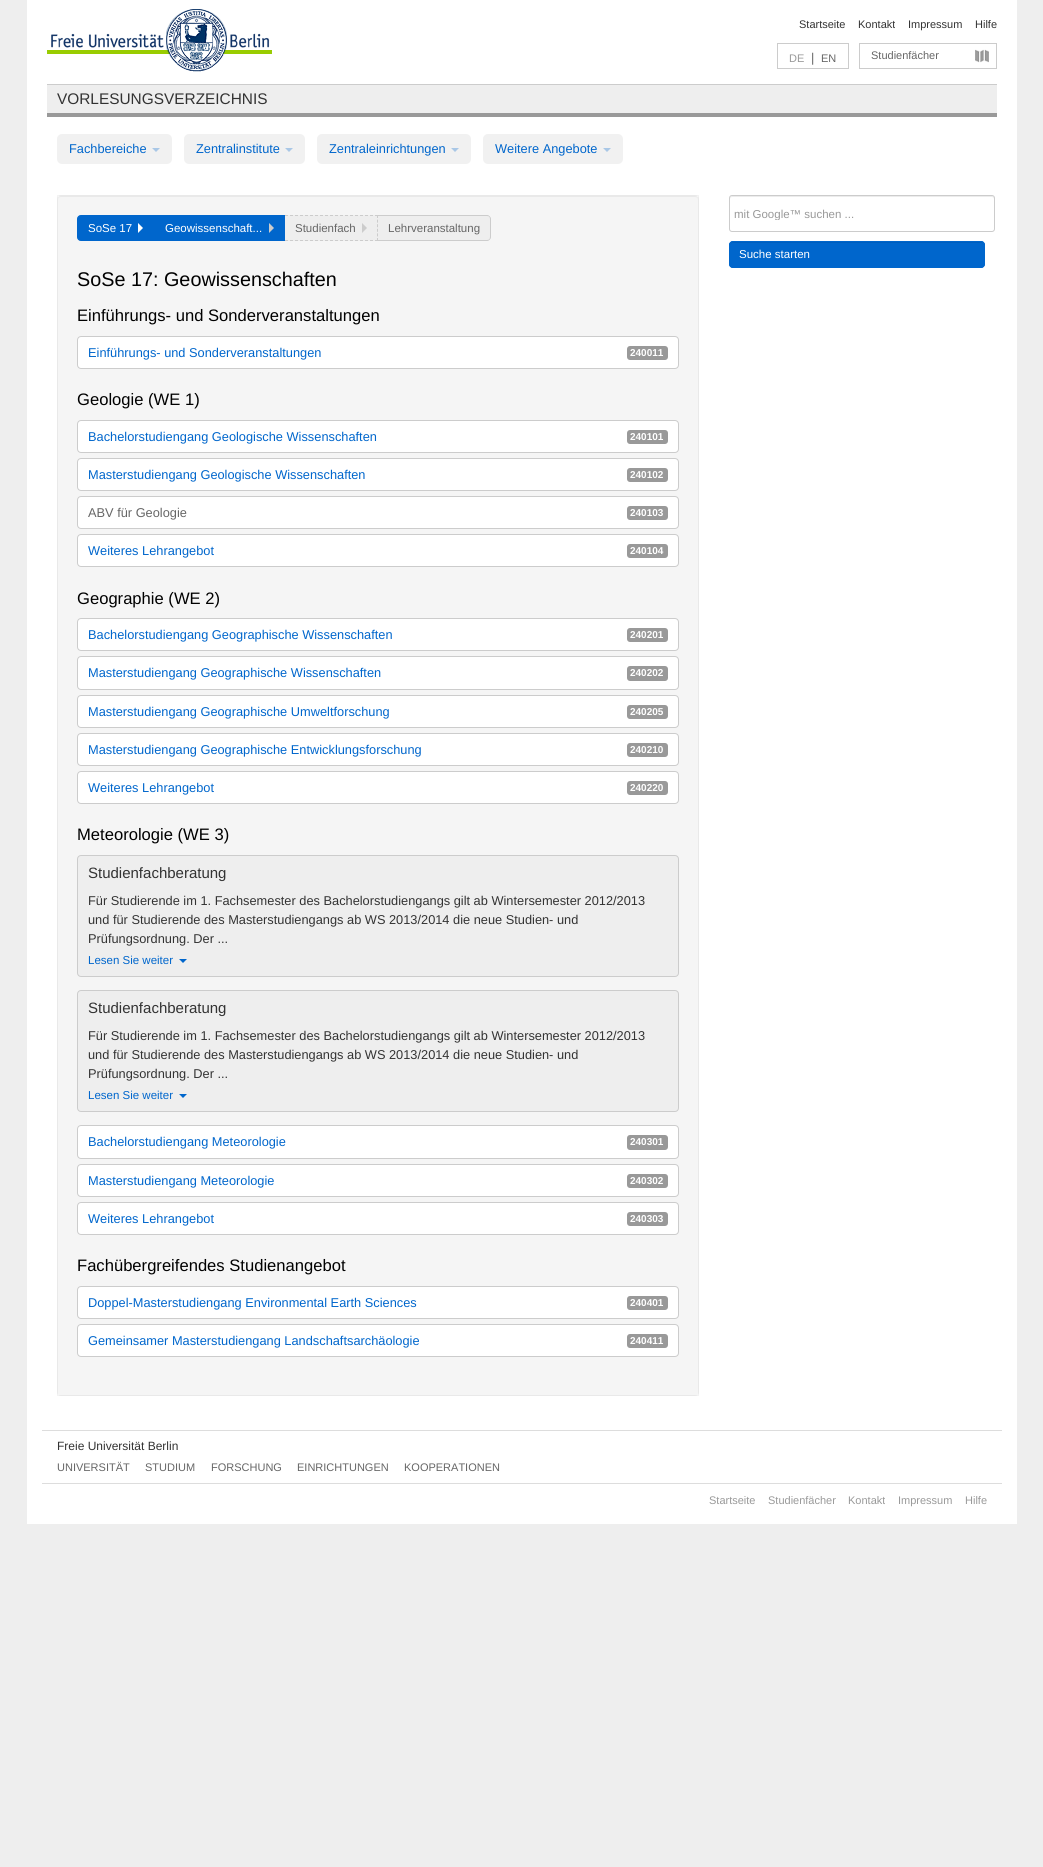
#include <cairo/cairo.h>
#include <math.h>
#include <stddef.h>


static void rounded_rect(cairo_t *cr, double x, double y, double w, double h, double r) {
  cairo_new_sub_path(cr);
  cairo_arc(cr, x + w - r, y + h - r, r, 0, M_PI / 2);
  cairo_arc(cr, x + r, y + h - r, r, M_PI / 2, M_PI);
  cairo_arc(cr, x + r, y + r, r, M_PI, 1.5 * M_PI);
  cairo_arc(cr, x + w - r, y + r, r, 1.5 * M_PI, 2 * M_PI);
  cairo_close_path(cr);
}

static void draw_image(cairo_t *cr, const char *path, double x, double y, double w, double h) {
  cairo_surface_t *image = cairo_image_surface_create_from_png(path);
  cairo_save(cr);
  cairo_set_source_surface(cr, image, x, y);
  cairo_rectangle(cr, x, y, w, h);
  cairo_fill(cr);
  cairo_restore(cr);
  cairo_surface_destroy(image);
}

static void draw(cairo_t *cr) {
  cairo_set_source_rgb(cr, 238 / 255.0, 238 / 255.0, 238 / 255.0);
  cairo_paint(cr);
  cairo_set_source_rgb(cr, 1, 1, 1);
  cairo_rectangle(cr, 27, 0, 990, 1524);
  cairo_fill(cr);
  draw_image(cr, "images/1.png", 47, 9, 225, 63);
  cairo_rectangle(cr, 777.5, 43.5, 71, 25);
  cairo_set_source_rgb(cr, 204 / 255.0, 204 / 255.0, 204 / 255.0);
  cairo_set_line_width(cr, 1);
  cairo_stroke(cr);
  cairo_rectangle(cr, 859.5, 43.5, 137, 25);
  cairo_stroke(cr);
  draw_image(cr, "images/2.png", 975, 49, 14, 14);
  cairo_set_source_rgb(cr, 238 / 255.0, 238 / 255.0, 238 / 255.0);
  cairo_rectangle(cr, 47, 85, 950, 28);
  cairo_fill(cr);
  cairo_set_source_rgb(cr, 204 / 255.0, 204 / 255.0, 204 / 255.0);
  cairo_rectangle(cr, 47, 84, 950, 1);
  cairo_fill(cr);
  cairo_set_source_rgb(cr, 153 / 255.0, 153 / 255.0, 153 / 255.0);
  cairo_rectangle(cr, 47, 113, 950, 4);
  cairo_fill(cr);
  cairo_set_source_rgb(cr, 241 / 255.0, 241 / 255.0, 241 / 255.0);
  rounded_rect(cr, 57, 134, 115, 30, 5);
  cairo_fill(cr);
  cairo_set_source_rgb(cr, 169 / 255.0, 199 / 255.0, 230 / 255.0);
  cairo_new_path(cr);
  cairo_move_to(cr, 152, 148);
  cairo_line_to(cr, 160, 148);
  cairo_line_to(cr, 156, 152);
  cairo_close_path(cr);
  cairo_fill(cr);
  cairo_set_source_rgb(cr, 241 / 255.0, 241 / 255.0, 241 / 255.0);
  rounded_rect(cr, 184, 134, 121, 30, 5);
  cairo_fill(cr);
  cairo_set_source_rgb(cr, 169 / 255.0, 199 / 255.0, 230 / 255.0);
  cairo_new_path(cr);
  cairo_move_to(cr, 285, 148);
  cairo_line_to(cr, 293, 148);
  cairo_line_to(cr, 289, 152);
  cairo_close_path(cr);
  cairo_fill(cr);
  cairo_set_source_rgb(cr, 241 / 255.0, 241 / 255.0, 241 / 255.0);
  rounded_rect(cr, 317, 134, 154, 30, 5);
  cairo_fill(cr);
  cairo_set_source_rgb(cr, 169 / 255.0, 199 / 255.0, 230 / 255.0);
  cairo_new_path(cr);
  cairo_move_to(cr, 451, 148);
  cairo_line_to(cr, 459, 148);
  cairo_line_to(cr, 455, 152);
  cairo_close_path(cr);
  cairo_fill(cr);
  cairo_set_source_rgb(cr, 241 / 255.0, 241 / 255.0, 241 / 255.0);
  rounded_rect(cr, 483, 134, 140, 30, 5);
  cairo_fill(cr);
  cairo_set_source_rgb(cr, 169 / 255.0, 199 / 255.0, 230 / 255.0);
  cairo_new_path(cr);
  cairo_move_to(cr, 603, 148);
  cairo_line_to(cr, 611, 148);
  cairo_line_to(cr, 607, 152);
  cairo_close_path(cr);
  cairo_fill(cr);
  cairo_set_source_rgb(cr, 245 / 255.0, 245 / 255.0, 245 / 255.0);
  rounded_rect(cr, 57, 195, 642, 1201, 4);
  cairo_fill(cr);
  cairo_set_source_rgb(cr, 233 / 255.0, 233 / 255.0, 233 / 255.0);
  cairo_new_path(cr);
  cairo_move_to(cr, 61, 197);
  cairo_line_to(cr, 695, 197);
  cairo_curve_to(cr, 697, 197, 698, 198, 698, 200);
  cairo_line_to(cr, 698, 199);
  cairo_curve_to(cr, 698, 197, 697, 196, 695, 196);
  cairo_line_to(cr, 61, 196);
  cairo_curve_to(cr, 59, 196, 58, 197, 58, 199);
  cairo_line_to(cr, 58, 200);
  cairo_curve_to(cr, 58, 198, 59, 197, 61, 197);
  cairo_close_path(cr);
  cairo_fill(cr);
  cairo_rectangle(cr, 57.5, 195.5, 641, 1200);
  cairo_set_source_rgba(cr, 0, 0, 0, 0.05);
  cairo_stroke(cr);
  cairo_set_source_rgb(cr, 0, 102 / 255.0, 204 / 255.0);
  cairo_new_path(cr);
  cairo_move_to(cr, 81, 215.5);
  cairo_line_to(cr, 153.5, 215.5);
  cairo_line_to(cr, 153.5, 240.5);
  cairo_line_to(cr, 81, 240.5);
  cairo_curve_to(cr, 79, 240.5, 77.5, 239, 77.5, 237);
  cairo_line_to(cr, 77.5, 219);
  cairo_curve_to(cr, 77.5, 217, 79, 215.5, 81, 215.5);
  cairo_close_path(cr);
  cairo_fill_preserve(cr);
  cairo_stroke(cr);
  cairo_set_source_rgb(cr, 1, 1, 1);
  cairo_new_path(cr);
  cairo_move_to(cr, 138, 233);
  cairo_line_to(cr, 138, 223);
  cairo_line_to(cr, 143, 228);
  cairo_close_path(cr);
  cairo_fill(cr);
  cairo_set_source_rgb(cr, 0, 102 / 255.0, 204 / 255.0);
  cairo_rectangle(cr, 154, 215, 131, 26);
  cairo_fill(cr);
  cairo_set_source_rgb(cr, 204 / 255.0, 204 / 255.0, 204 / 255.0);
  cairo_new_path(cr);
  cairo_move_to(cr, 269, 233);
  cairo_line_to(cr, 269, 223);
  cairo_line_to(cr, 274, 228);
  cairo_close_path(cr);
  cairo_fill(cr);
  cairo_set_source_rgb(cr, 238 / 255.0, 238 / 255.0, 238 / 255.0);
  cairo_rectangle(cr, 285, 215, 93, 26);
  cairo_fill(cr);
  cairo_new_path(cr);
  cairo_move_to(cr, 285, 215.5);
  cairo_line_to(cr, 378, 215.5);
  cairo_set_source_rgb(cr, 204 / 255.0, 204 / 255.0, 204 / 255.0);
  cairo_set_dash(cr, (double[]){3, 2}, 2, 0);
  cairo_stroke(cr);
  cairo_new_path(cr);
  cairo_move_to(cr, 377.5, 215);
  cairo_line_to(cr, 377.5, 241);
  cairo_set_dash(cr, (double[]){3, 1.6}, 2, 0);
  cairo_stroke(cr);
  cairo_new_path(cr);
  cairo_move_to(cr, 285, 240.5);
  cairo_line_to(cr, 378, 240.5);
  cairo_set_dash(cr, (double[]){3, 2}, 2, 0);
  cairo_stroke(cr);
  cairo_new_path(cr);
  cairo_move_to(cr, 362, 233);
  cairo_line_to(cr, 362, 223);
  cairo_line_to(cr, 367, 228);
  cairo_close_path(cr);
  cairo_fill(cr);
  cairo_set_source_rgb(cr, 238 / 255.0, 238 / 255.0, 238 / 255.0);
  cairo_new_path(cr);
  cairo_move_to(cr, 378, 215);
  cairo_line_to(cr, 487, 215);
  cairo_curve_to(cr, 489, 215, 491, 217, 491, 219);
  cairo_line_to(cr, 491, 237);
  cairo_curve_to(cr, 491, 239, 489, 241, 487, 241);
  cairo_line_to(cr, 378, 241);
  cairo_close_path(cr);
  cairo_fill(cr);
  cairo_set_source_rgb(cr, 204 / 255.0, 204 / 255.0, 204 / 255.0);
  cairo_set_fill_rule(cr, CAIRO_FILL_RULE_EVEN_ODD);
  cairo_new_path(cr);
  cairo_move_to(cr, 378, 215);
  cairo_line_to(cr, 487, 215);
  cairo_curve_to(cr, 489, 215, 491, 217, 491, 219);
  cairo_line_to(cr, 491, 237);
  cairo_curve_to(cr, 491, 239, 489, 241, 487, 241);
  cairo_line_to(cr, 378, 241);
  cairo_close_path(cr);
  cairo_move_to(cr, 378, 216);
  cairo_line_to(cr, 487, 216);
  cairo_curve_to(cr, 489, 216, 490, 217, 490, 219);
  cairo_line_to(cr, 490, 237);
  cairo_curve_to(cr, 490, 239, 489, 240, 487, 240);
  cairo_line_to(cr, 378, 240);
  cairo_close_path(cr);
  cairo_fill(cr);
  cairo_set_source_rgb(cr, 1, 1, 1);
  rounded_rect(cr, 77.5, 336.5, 601, 32, 3.5);
  cairo_fill_preserve(cr);
  cairo_set_source_rgb(cr, 204 / 255.0, 204 / 255.0, 204 / 255.0);
  cairo_set_dash(cr, NULL, 0, 0);
  cairo_stroke(cr);
  cairo_set_source_rgb(cr, 153 / 255.0, 153 / 255.0, 153 / 255.0);
  rounded_rect(cr, 627, 346, 41, 14, 3);
  cairo_fill(cr);
  cairo_set_source_rgb(cr, 1, 1, 1);
  rounded_rect(cr, 77.5, 420.5, 601, 32, 3.5);
  cairo_fill_preserve(cr);
  cairo_set_source_rgb(cr, 204 / 255.0, 204 / 255.0, 204 / 255.0);
  cairo_stroke(cr);
  cairo_set_source_rgb(cr, 153 / 255.0, 153 / 255.0, 153 / 255.0);
  rounded_rect(cr, 627, 430, 41, 14, 3);
  cairo_fill(cr);
  cairo_set_source_rgb(cr, 1, 1, 1);
  rounded_rect(cr, 77.5, 458.5, 601, 32, 3.5);
  cairo_fill_preserve(cr);
  cairo_set_source_rgb(cr, 204 / 255.0, 204 / 255.0, 204 / 255.0);
  cairo_stroke(cr);
  cairo_set_source_rgb(cr, 153 / 255.0, 153 / 255.0, 153 / 255.0);
  rounded_rect(cr, 627, 468, 41, 14, 3);
  cairo_fill(cr);
  cairo_set_source_rgb(cr, 1, 1, 1);
  rounded_rect(cr, 77.5, 496.5, 601, 32, 3.5);
  cairo_fill_preserve(cr);
  cairo_set_source_rgb(cr, 204 / 255.0, 204 / 255.0, 204 / 255.0);
  cairo_stroke(cr);
  cairo_set_source_rgb(cr, 153 / 255.0, 153 / 255.0, 153 / 255.0);
  rounded_rect(cr, 627, 506, 41, 14, 3);
  cairo_fill(cr);
  cairo_set_source_rgb(cr, 1, 1, 1);
  rounded_rect(cr, 77.5, 534.5, 601, 32, 3.5);
  cairo_fill_preserve(cr);
  cairo_set_source_rgb(cr, 204 / 255.0, 204 / 255.0, 204 / 255.0);
  cairo_stroke(cr);
  cairo_set_source_rgb(cr, 153 / 255.0, 153 / 255.0, 153 / 255.0);
  rounded_rect(cr, 627, 544, 41, 14, 3);
  cairo_fill(cr);
  cairo_set_source_rgb(cr, 1, 1, 1);
  rounded_rect(cr, 77.5, 618.5, 601, 32, 3.5);
  cairo_fill_preserve(cr);
  cairo_set_source_rgb(cr, 204 / 255.0, 204 / 255.0, 204 / 255.0);
  cairo_stroke(cr);
  cairo_set_source_rgb(cr, 153 / 255.0, 153 / 255.0, 153 / 255.0);
  rounded_rect(cr, 627, 628, 41, 14, 3);
  cairo_fill(cr);
  cairo_set_source_rgb(cr, 1, 1, 1);
  rounded_rect(cr, 77.5, 656.5, 601, 33, 3.5);
  cairo_fill_preserve(cr);
  cairo_set_source_rgb(cr, 204 / 255.0, 204 / 255.0, 204 / 255.0);
  cairo_stroke(cr);
  cairo_set_source_rgb(cr, 153 / 255.0, 153 / 255.0, 153 / 255.0);
  rounded_rect(cr, 627, 666, 41, 15, 3);
  cairo_fill(cr);
  cairo_set_source_rgb(cr, 1, 1, 1);
  rounded_rect(cr, 77.5, 695.5, 601, 32, 3.5);
  cairo_fill_preserve(cr);
  cairo_set_source_rgb(cr, 204 / 255.0, 204 / 255.0, 204 / 255.0);
  cairo_stroke(cr);
  cairo_set_source_rgb(cr, 153 / 255.0, 153 / 255.0, 153 / 255.0);
  rounded_rect(cr, 627, 705, 41, 14, 3);
  cairo_fill(cr);
  cairo_set_source_rgb(cr, 1, 1, 1);
  rounded_rect(cr, 77.5, 733.5, 601, 32, 3.5);
  cairo_fill_preserve(cr);
  cairo_set_source_rgb(cr, 204 / 255.0, 204 / 255.0, 204 / 255.0);
  cairo_stroke(cr);
  cairo_set_source_rgb(cr, 153 / 255.0, 153 / 255.0, 153 / 255.0);
  rounded_rect(cr, 627, 743, 41, 14, 3);
  cairo_fill(cr);
  cairo_set_source_rgb(cr, 1, 1, 1);
  rounded_rect(cr, 77.5, 771.5, 601, 32, 3.5);
  cairo_fill_preserve(cr);
  cairo_set_source_rgb(cr, 204 / 255.0, 204 / 255.0, 204 / 255.0);
  cairo_stroke(cr);
  cairo_set_source_rgb(cr, 153 / 255.0, 153 / 255.0, 153 / 255.0);
  rounded_rect(cr, 627, 781, 41, 14, 3);
  cairo_fill(cr);
  cairo_set_source_rgb(cr, 238 / 255.0, 238 / 255.0, 238 / 255.0);
  rounded_rect(cr, 77.5, 855.5, 601, 121, 3.5);
  cairo_fill_preserve(cr);
  cairo_set_source_rgb(cr, 204 / 255.0, 204 / 255.0, 204 / 255.0);
  cairo_stroke(cr);
  cairo_set_source_rgb(cr, 0, 102 / 255.0, 204 / 255.0);
  cairo_set_fill_rule(cr, CAIRO_FILL_RULE_WINDING);
  cairo_new_path(cr);
  cairo_move_to(cr, 179, 959);
  cairo_line_to(cr, 187, 959);
  cairo_line_to(cr, 183, 963);
  cairo_close_path(cr);
  cairo_fill(cr);
  cairo_set_source_rgb(cr, 238 / 255.0, 238 / 255.0, 238 / 255.0);
  rounded_rect(cr, 77.5, 990.5, 601, 121, 3.5);
  cairo_fill_preserve(cr);
  cairo_set_source_rgb(cr, 204 / 255.0, 204 / 255.0, 204 / 255.0);
  cairo_stroke(cr);
  cairo_set_source_rgb(cr, 0, 102 / 255.0, 204 / 255.0);
  cairo_new_path(cr);
  cairo_move_to(cr, 179, 1094);
  cairo_line_to(cr, 187, 1094);
  cairo_line_to(cr, 183, 1098);
  cairo_close_path(cr);
  cairo_fill(cr);
  cairo_set_source_rgb(cr, 1, 1, 1);
  rounded_rect(cr, 77.5, 1125.5, 601, 33, 3.5);
  cairo_fill_preserve(cr);
  cairo_set_source_rgb(cr, 204 / 255.0, 204 / 255.0, 204 / 255.0);
  cairo_stroke(cr);
  cairo_set_source_rgb(cr, 153 / 255.0, 153 / 255.0, 153 / 255.0);
  rounded_rect(cr, 627, 1135, 41, 15, 3);
  cairo_fill(cr);
  cairo_set_source_rgb(cr, 1, 1, 1);
  rounded_rect(cr, 77.5, 1164.5, 601, 32, 3.5);
  cairo_fill_preserve(cr);
  cairo_set_source_rgb(cr, 204 / 255.0, 204 / 255.0, 204 / 255.0);
  cairo_stroke(cr);
  cairo_set_source_rgb(cr, 153 / 255.0, 153 / 255.0, 153 / 255.0);
  rounded_rect(cr, 627, 1174, 41, 14, 3);
  cairo_fill(cr);
  cairo_set_source_rgb(cr, 1, 1, 1);
  rounded_rect(cr, 77.5, 1202.5, 601, 32, 3.5);
  cairo_fill_preserve(cr);
  cairo_set_source_rgb(cr, 204 / 255.0, 204 / 255.0, 204 / 255.0);
  cairo_stroke(cr);
  cairo_set_source_rgb(cr, 153 / 255.0, 153 / 255.0, 153 / 255.0);
  rounded_rect(cr, 627, 1212, 41, 14, 3);
  cairo_fill(cr);
  cairo_set_source_rgb(cr, 1, 1, 1);
  rounded_rect(cr, 77.5, 1286.5, 601, 32, 3.5);
  cairo_fill_preserve(cr);
  cairo_set_source_rgb(cr, 204 / 255.0, 204 / 255.0, 204 / 255.0);
  cairo_stroke(cr);
  cairo_set_source_rgb(cr, 153 / 255.0, 153 / 255.0, 153 / 255.0);
  rounded_rect(cr, 627, 1296, 41, 14, 3);
  cairo_fill(cr);
  cairo_set_source_rgb(cr, 1, 1, 1);
  rounded_rect(cr, 77.5, 1324.5, 601, 32, 3.5);
  cairo_fill_preserve(cr);
  cairo_set_source_rgb(cr, 204 / 255.0, 204 / 255.0, 204 / 255.0);
  cairo_stroke(cr);
  cairo_set_source_rgb(cr, 153 / 255.0, 153 / 255.0, 153 / 255.0);
  rounded_rect(cr, 627, 1334, 41, 14, 3);
  cairo_fill(cr);
  cairo_set_source_rgb(cr, 236 / 255.0, 236 / 255.0, 236 / 255.0);
  cairo_new_path(cr);
  cairo_move_to(cr, 732, 197);
  cairo_line_to(cr, 992, 197);
  cairo_curve_to(cr, 993, 197, 994, 198, 994, 199);
  cairo_line_to(cr, 994, 198);
  cairo_curve_to(cr, 994, 197, 993, 196, 992, 196);
  cairo_line_to(cr, 732, 196);
  cairo_curve_to(cr, 731, 196, 730, 197, 730, 198);
  cairo_line_to(cr, 730, 199);
  cairo_curve_to(cr, 730, 198, 731, 197, 732, 197);
  cairo_close_path(cr);
  cairo_fill(cr);
  rounded_rect(cr, 729.5, 195.5, 265, 36, 2.5);
  cairo_set_source_rgb(cr, 204 / 255.0, 204 / 255.0, 204 / 255.0);
  cairo_stroke(cr);
  cairo_set_source_rgb(cr, 0, 102 / 255.0, 204 / 255.0);
  rounded_rect(cr, 729, 241, 256, 27, 4);
  cairo_fill(cr);
  cairo_set_source_rgb(cr, 0, 94 / 255.0, 189 / 255.0);
  cairo_new_path(cr);
  cairo_move_to(cr, 733, 243);
  cairo_line_to(cr, 982, 243);
  cairo_line_to(cr, 984, 244);
  cairo_line_to(cr, 984, 246);
  cairo_curve_to(cr, 984, 244, 983, 242, 981, 242);
  cairo_line_to(cr, 733, 242);
  cairo_curve_to(cr, 731, 242, 730, 244, 730, 246);
  cairo_curve_to(cr, 730, 244, 731, 243, 733, 243);
  cairo_close_path(cr);
  cairo_fill(cr);
  rounded_rect(cr, 729.5, 241.5, 255, 26, 3.5);
  cairo_set_source_rgb(cr, 0, 102 / 255.0, 204 / 255.0);
  cairo_stroke(cr);
  cairo_set_source_rgb(cr, 221 / 255.0, 221 / 255.0, 221 / 255.0);
  cairo_rectangle(cr, 42, 1430, 960, 1);
  cairo_fill(cr);
  cairo_rectangle(cr, 42, 1483, 960, 1);
  cairo_fill(cr);
  cairo_select_font_face(cr, "Liberation Sans", CAIRO_FONT_SLANT_NORMAL, CAIRO_FONT_WEIGHT_NORMAL);
  cairo_set_font_size(cr, 11);
  cairo_set_source_rgb(cr, 51 / 255.0, 51 / 255.0, 51 / 255.0);
  cairo_move_to(cr, 799, 28);
  cairo_show_text(cr, "Startseite");
  cairo_move_to(cr, 858, 28);
  cairo_show_text(cr, "Kontakt");
  cairo_move_to(cr, 908, 28);
  cairo_show_text(cr, "Impressum");
  cairo_move_to(cr, 975, 28);
  cairo_show_text(cr, "Hilfe");
  cairo_set_source_rgb(cr, 153 / 255.0, 153 / 255.0, 153 / 255.0);
  cairo_move_to(cr, 789, 62);
  cairo_show_text(cr, "DE");
  cairo_set_font_size(cr, 12.8);
  cairo_set_source_rgb(cr, 102 / 255.0, 102 / 255.0, 102 / 255.0);
  cairo_move_to(cr, 811, 62);
  cairo_show_text(cr, "|");
  cairo_set_font_size(cr, 11);
  cairo_move_to(cr, 821, 62);
  cairo_show_text(cr, "EN");
  cairo_move_to(cr, 871, 59);
  cairo_show_text(cr, "Studienfächer");
  cairo_set_font_size(cr, 15.4);
  cairo_set_source_rgb(cr, 51 / 255.0, 51 / 255.0, 51 / 255.0);
  cairo_move_to(cr, 57, 104);
  cairo_show_text(cr, "VORLESUNGSVERZEICHNIS");
  cairo_set_font_size(cr, 12.8);
  cairo_set_source_rgb(cr, 0, 102 / 255.0, 204 / 255.0);
  cairo_move_to(cr, 69, 153);
  cairo_show_text(cr, "Fachbereiche");
  cairo_move_to(cr, 196, 153);
  cairo_show_text(cr, "Zentralinstitute");
  cairo_move_to(cr, 329, 153);
  cairo_show_text(cr, "Zentraleinrichtungen");
  cairo_move_to(cr, 495, 153);
  cairo_show_text(cr, "Weitere Angebote");
  cairo_set_font_size(cr, 11.5);
  cairo_set_source_rgb(cr, 1, 1, 1);
  cairo_move_to(cr, 88, 232);
  cairo_show_text(cr, "SoSe 17");
  cairo_move_to(cr, 165, 232);
  cairo_show_text(cr, "Geowissenschaft...");
  cairo_set_source_rgb(cr, 102 / 255.0, 102 / 255.0, 102 / 255.0);
  cairo_move_to(cr, 295, 232);
  cairo_show_text(cr, "Studienfach");
  cairo_move_to(cr, 388, 232);
  cairo_show_text(cr, "Lehrveranstaltung");
  cairo_set_font_size(cr, 19.8);
  cairo_set_source_rgb(cr, 0, 0, 0);
  cairo_move_to(cr, 77, 286);
  cairo_show_text(cr, "SoSe 17: Geowissenschaften");
  cairo_set_font_size(cr, 16.6);
  cairo_move_to(cr, 77, 321);
  cairo_show_text(cr, "Einführungs- und Sonderveranstaltungen");
  cairo_set_font_size(cr, 12.8);
  cairo_set_source_rgb(cr, 0, 102 / 255.0, 204 / 255.0);
  cairo_move_to(cr, 88, 357);
  cairo_show_text(cr, "Einführungs- und Sonderveranstaltungen");
  cairo_select_font_face(cr, "Liberation Sans", CAIRO_FONT_SLANT_NORMAL, CAIRO_FONT_WEIGHT_BOLD);
  cairo_set_font_size(cr, 10);
  cairo_set_source_rgb(cr, 1, 1, 1);
  cairo_move_to(cr, 630, 356);
  cairo_show_text(cr, "240011");
  cairo_select_font_face(cr, "Liberation Sans", CAIRO_FONT_SLANT_NORMAL, CAIRO_FONT_WEIGHT_NORMAL);
  cairo_set_font_size(cr, 16.6);
  cairo_set_source_rgb(cr, 0, 0, 0);
  cairo_move_to(cr, 77, 405);
  cairo_show_text(cr, "Geologie (WE 1)");
  cairo_set_font_size(cr, 12.8);
  cairo_set_source_rgb(cr, 0, 102 / 255.0, 204 / 255.0);
  cairo_move_to(cr, 88, 441);
  cairo_show_text(cr, "Bachelorstudiengang Geologische Wissenschaften");
  cairo_select_font_face(cr, "Liberation Sans", CAIRO_FONT_SLANT_NORMAL, CAIRO_FONT_WEIGHT_BOLD);
  cairo_set_font_size(cr, 10);
  cairo_set_source_rgb(cr, 1, 1, 1);
  cairo_move_to(cr, 630, 440);
  cairo_show_text(cr, "240101");
  cairo_select_font_face(cr, "Liberation Sans", CAIRO_FONT_SLANT_NORMAL, CAIRO_FONT_WEIGHT_NORMAL);
  cairo_set_font_size(cr, 12.8);
  cairo_set_source_rgb(cr, 0, 102 / 255.0, 204 / 255.0);
  cairo_move_to(cr, 88, 479);
  cairo_show_text(cr, "Masterstudiengang Geologische Wissenschaften");
  cairo_select_font_face(cr, "Liberation Sans", CAIRO_FONT_SLANT_NORMAL, CAIRO_FONT_WEIGHT_BOLD);
  cairo_set_font_size(cr, 10);
  cairo_set_source_rgb(cr, 1, 1, 1);
  cairo_move_to(cr, 630, 478);
  cairo_show_text(cr, "240102");
  cairo_select_font_face(cr, "Liberation Sans", CAIRO_FONT_SLANT_NORMAL, CAIRO_FONT_WEIGHT_NORMAL);
  cairo_set_font_size(cr, 12.8);
  cairo_set_source_rgb(cr, 102 / 255.0, 102 / 255.0, 102 / 255.0);
  cairo_move_to(cr, 88, 517);
  cairo_show_text(cr, "ABV für Geologie");
  cairo_select_font_face(cr, "Liberation Sans", CAIRO_FONT_SLANT_NORMAL, CAIRO_FONT_WEIGHT_BOLD);
  cairo_set_font_size(cr, 10);
  cairo_set_source_rgb(cr, 1, 1, 1);
  cairo_move_to(cr, 630, 516);
  cairo_show_text(cr, "240103");
  cairo_select_font_face(cr, "Liberation Sans", CAIRO_FONT_SLANT_NORMAL, CAIRO_FONT_WEIGHT_NORMAL);
  cairo_set_font_size(cr, 12.8);
  cairo_set_source_rgb(cr, 0, 102 / 255.0, 204 / 255.0);
  cairo_move_to(cr, 88, 555);
  cairo_show_text(cr, "Weiteres Lehrangebot");
  cairo_select_font_face(cr, "Liberation Sans", CAIRO_FONT_SLANT_NORMAL, CAIRO_FONT_WEIGHT_BOLD);
  cairo_set_font_size(cr, 10);
  cairo_set_source_rgb(cr, 1, 1, 1);
  cairo_move_to(cr, 630, 554);
  cairo_show_text(cr, "240104");
  cairo_select_font_face(cr, "Liberation Sans", CAIRO_FONT_SLANT_NORMAL, CAIRO_FONT_WEIGHT_NORMAL);
  cairo_set_font_size(cr, 16.6);
  cairo_set_source_rgb(cr, 0, 0, 0);
  cairo_move_to(cr, 77, 604);
  cairo_show_text(cr, "Geographie (WE 2)");
  cairo_set_font_size(cr, 12.8);
  cairo_set_source_rgb(cr, 0, 102 / 255.0, 204 / 255.0);
  cairo_move_to(cr, 88, 639);
  cairo_show_text(cr, "Bachelorstudiengang Geographische Wissenschaften");
  cairo_select_font_face(cr, "Liberation Sans", CAIRO_FONT_SLANT_NORMAL, CAIRO_FONT_WEIGHT_BOLD);
  cairo_set_font_size(cr, 10);
  cairo_set_source_rgb(cr, 1, 1, 1);
  cairo_move_to(cr, 630, 638);
  cairo_show_text(cr, "240201");
  cairo_select_font_face(cr, "Liberation Sans", CAIRO_FONT_SLANT_NORMAL, CAIRO_FONT_WEIGHT_NORMAL);
  cairo_set_font_size(cr, 12.8);
  cairo_set_source_rgb(cr, 0, 102 / 255.0, 204 / 255.0);
  cairo_move_to(cr, 88, 677);
  cairo_show_text(cr, "Masterstudiengang Geographische Wissenschaften");
  cairo_select_font_face(cr, "Liberation Sans", CAIRO_FONT_SLANT_NORMAL, CAIRO_FONT_WEIGHT_BOLD);
  cairo_set_font_size(cr, 10);
  cairo_set_source_rgb(cr, 1, 1, 1);
  cairo_move_to(cr, 630, 676);
  cairo_show_text(cr, "240202");
  cairo_select_font_face(cr, "Liberation Sans", CAIRO_FONT_SLANT_NORMAL, CAIRO_FONT_WEIGHT_NORMAL);
  cairo_set_font_size(cr, 12.8);
  cairo_set_source_rgb(cr, 0, 102 / 255.0, 204 / 255.0);
  cairo_move_to(cr, 88, 716);
  cairo_show_text(cr, "Masterstudiengang Geographische Umweltforschung");
  cairo_select_font_face(cr, "Liberation Sans", CAIRO_FONT_SLANT_NORMAL, CAIRO_FONT_WEIGHT_BOLD);
  cairo_set_font_size(cr, 10);
  cairo_set_source_rgb(cr, 1, 1, 1);
  cairo_move_to(cr, 630, 715);
  cairo_show_text(cr, "240205");
  cairo_select_font_face(cr, "Liberation Sans", CAIRO_FONT_SLANT_NORMAL, CAIRO_FONT_WEIGHT_NORMAL);
  cairo_set_font_size(cr, 12.8);
  cairo_set_source_rgb(cr, 0, 102 / 255.0, 204 / 255.0);
  cairo_move_to(cr, 88, 754);
  cairo_show_text(cr, "Masterstudiengang Geographische Entwicklungsforschung");
  cairo_select_font_face(cr, "Liberation Sans", CAIRO_FONT_SLANT_NORMAL, CAIRO_FONT_WEIGHT_BOLD);
  cairo_set_font_size(cr, 10);
  cairo_set_source_rgb(cr, 1, 1, 1);
  cairo_move_to(cr, 630, 753);
  cairo_show_text(cr, "240210");
  cairo_select_font_face(cr, "Liberation Sans", CAIRO_FONT_SLANT_NORMAL, CAIRO_FONT_WEIGHT_NORMAL);
  cairo_set_font_size(cr, 12.8);
  cairo_set_source_rgb(cr, 0, 102 / 255.0, 204 / 255.0);
  cairo_move_to(cr, 88, 792);
  cairo_show_text(cr, "Weiteres Lehrangebot");
  cairo_select_font_face(cr, "Liberation Sans", CAIRO_FONT_SLANT_NORMAL, CAIRO_FONT_WEIGHT_BOLD);
  cairo_set_font_size(cr, 10);
  cairo_set_source_rgb(cr, 1, 1, 1);
  cairo_move_to(cr, 630, 791);
  cairo_show_text(cr, "240220");
  cairo_select_font_face(cr, "Liberation Sans", CAIRO_FONT_SLANT_NORMAL, CAIRO_FONT_WEIGHT_NORMAL);
  cairo_set_font_size(cr, 16.6);
  cairo_set_source_rgb(cr, 0, 0, 0);
  cairo_move_to(cr, 77, 840);
  cairo_show_text(cr, "Meteorologie (WE 3)");
  cairo_set_font_size(cr, 15);
  cairo_set_source_rgb(cr, 51 / 255.0, 51 / 255.0, 51 / 255.0);
  cairo_move_to(cr, 88, 878);
  cairo_show_text(cr, "Studienfachberatung");
  cairo_set_font_size(cr, 12.8);
  cairo_move_to(cr, 88, 905);
  cairo_show_text(cr, "Für Studierende im 1. Fachsemester des Bachelorstudiengangs gilt ab Wintersemester 2012/2013");
  cairo_move_to(cr, 88, 924);
  cairo_show_text(cr, "und für Studierende des Masterstudiengangs ab WS 2013/2014 die neue Studien- und");
  cairo_move_to(cr, 88, 943);
  cairo_show_text(cr, "Prüfungsordnung. Der ...");
  cairo_set_font_size(cr, 11.5);
  cairo_set_source_rgb(cr, 0, 102 / 255.0, 204 / 255.0);
  cairo_move_to(cr, 88, 964);
  cairo_show_text(cr, "Lesen Sie weiter");
  cairo_set_font_size(cr, 15);
  cairo_set_source_rgb(cr, 51 / 255.0, 51 / 255.0, 51 / 255.0);
  cairo_move_to(cr, 88, 1013);
  cairo_show_text(cr, "Studienfachberatung");
  cairo_set_font_size(cr, 12.8);
  cairo_move_to(cr, 88, 1040);
  cairo_show_text(cr, "Für Studierende im 1. Fachsemester des Bachelorstudiengangs gilt ab Wintersemester 2012/2013");
  cairo_move_to(cr, 88, 1059);
  cairo_show_text(cr, "und für Studierende des Masterstudiengangs ab WS 2013/2014 die neue Studien- und");
  cairo_move_to(cr, 88, 1078);
  cairo_show_text(cr, "Prüfungsordnung. Der ...");
  cairo_set_font_size(cr, 11.5);
  cairo_set_source_rgb(cr, 0, 102 / 255.0, 204 / 255.0);
  cairo_move_to(cr, 88, 1099);
  cairo_show_text(cr, "Lesen Sie weiter");
  cairo_set_font_size(cr, 12.8);
  cairo_move_to(cr, 88, 1146);
  cairo_show_text(cr, "Bachelorstudiengang Meteorologie");
  cairo_select_font_face(cr, "Liberation Sans", CAIRO_FONT_SLANT_NORMAL, CAIRO_FONT_WEIGHT_BOLD);
  cairo_set_font_size(cr, 10);
  cairo_set_source_rgb(cr, 1, 1, 1);
  cairo_move_to(cr, 630, 1145);
  cairo_show_text(cr, "240301");
  cairo_select_font_face(cr, "Liberation Sans", CAIRO_FONT_SLANT_NORMAL, CAIRO_FONT_WEIGHT_NORMAL);
  cairo_set_font_size(cr, 12.8);
  cairo_set_source_rgb(cr, 0, 102 / 255.0, 204 / 255.0);
  cairo_move_to(cr, 88, 1185);
  cairo_show_text(cr, "Masterstudiengang Meteorologie");
  cairo_select_font_face(cr, "Liberation Sans", CAIRO_FONT_SLANT_NORMAL, CAIRO_FONT_WEIGHT_BOLD);
  cairo_set_font_size(cr, 10);
  cairo_set_source_rgb(cr, 1, 1, 1);
  cairo_move_to(cr, 630, 1184);
  cairo_show_text(cr, "240302");
  cairo_select_font_face(cr, "Liberation Sans", CAIRO_FONT_SLANT_NORMAL, CAIRO_FONT_WEIGHT_NORMAL);
  cairo_set_font_size(cr, 12.8);
  cairo_set_source_rgb(cr, 0, 102 / 255.0, 204 / 255.0);
  cairo_move_to(cr, 88, 1223);
  cairo_show_text(cr, "Weiteres Lehrangebot");
  cairo_select_font_face(cr, "Liberation Sans", CAIRO_FONT_SLANT_NORMAL, CAIRO_FONT_WEIGHT_BOLD);
  cairo_set_font_size(cr, 10);
  cairo_set_source_rgb(cr, 1, 1, 1);
  cairo_move_to(cr, 630, 1222);
  cairo_show_text(cr, "240303");
  cairo_select_font_face(cr, "Liberation Sans", CAIRO_FONT_SLANT_NORMAL, CAIRO_FONT_WEIGHT_NORMAL);
  cairo_set_font_size(cr, 16.6);
  cairo_set_source_rgb(cr, 0, 0, 0);
  cairo_move_to(cr, 77, 1271);
  cairo_show_text(cr, "Fachübergreifendes Studienangebot");
  cairo_set_font_size(cr, 12.8);
  cairo_set_source_rgb(cr, 0, 102 / 255.0, 204 / 255.0);
  cairo_move_to(cr, 88, 1307);
  cairo_show_text(cr, "Doppel-Masterstudiengang Environmental Earth Sciences");
  cairo_select_font_face(cr, "Liberation Sans", CAIRO_FONT_SLANT_NORMAL, CAIRO_FONT_WEIGHT_BOLD);
  cairo_set_font_size(cr, 10);
  cairo_set_source_rgb(cr, 1, 1, 1);
  cairo_move_to(cr, 630, 1306);
  cairo_show_text(cr, "240401");
  cairo_select_font_face(cr, "Liberation Sans", CAIRO_FONT_SLANT_NORMAL, CAIRO_FONT_WEIGHT_NORMAL);
  cairo_set_font_size(cr, 12.8);
  cairo_set_source_rgb(cr, 0, 102 / 255.0, 204 / 255.0);
  cairo_move_to(cr, 88, 1345);
  cairo_show_text(cr, "Gemeinsamer Masterstudiengang Landschaftsarchäologie");
  cairo_select_font_face(cr, "Liberation Sans", CAIRO_FONT_SLANT_NORMAL, CAIRO_FONT_WEIGHT_BOLD);
  cairo_set_font_size(cr, 10);
  cairo_set_source_rgb(cr, 1, 1, 1);
  cairo_move_to(cr, 630, 1344);
  cairo_show_text(cr, "240411");
  cairo_save(cr);
  cairo_rectangle(cr, 734, 208, 256, 12);
  cairo_clip(cr);
  cairo_select_font_face(cr, "Liberation Sans", CAIRO_FONT_SLANT_NORMAL, CAIRO_FONT_WEIGHT_NORMAL);
  cairo_set_font_size(cr, 11.5);
  cairo_set_source_rgb(cr, 153 / 255.0, 153 / 255.0, 153 / 255.0);
  cairo_move_to(cr, 734, 218);
  cairo_show_text(cr, "mit Google™ suchen ...");
  cairo_restore(cr);
  cairo_select_font_face(cr, "Liberation Sans", CAIRO_FONT_SLANT_NORMAL, CAIRO_FONT_WEIGHT_NORMAL);
  cairo_set_font_size(cr, 11.5);
  cairo_move_to(cr, 739, 258);
  cairo_show_text(cr, "Suche starten");
  cairo_set_font_size(cr, 12);
  cairo_set_source_rgb(cr, 51 / 255.0, 51 / 255.0, 51 / 255.0);
  cairo_move_to(cr, 57, 1450);
  cairo_show_text(cr, "Freie Universität Berlin");
  cairo_set_font_size(cr, 11);
  cairo_set_source_rgb(cr, 102 / 255.0, 102 / 255.0, 102 / 255.0);
  cairo_move_to(cr, 57, 1471);
  cairo_show_text(cr, "UNIVERSITÄT");
  cairo_move_to(cr, 145, 1471);
  cairo_show_text(cr, "STUDIUM");
  cairo_move_to(cr, 211, 1471);
  cairo_show_text(cr, "FORSCHUNG");
  cairo_move_to(cr, 297, 1471);
  cairo_show_text(cr, "EINRICHTUNGEN");
  cairo_move_to(cr, 404, 1471);
  cairo_show_text(cr, "KOOPERATIONEN");
  cairo_set_source_rgb(cr, 153 / 255.0, 153 / 255.0, 153 / 255.0);
  cairo_move_to(cr, 709, 1504);
  cairo_show_text(cr, "Startseite");
  cairo_move_to(cr, 768, 1504);
  cairo_show_text(cr, "Studienfächer");
  cairo_move_to(cr, 848, 1504);
  cairo_show_text(cr, "Kontakt");
  cairo_move_to(cr, 898, 1504);
  cairo_show_text(cr, "Impressum");
  cairo_move_to(cr, 965, 1504);
  cairo_show_text(cr, "Hilfe");
}

int main(void) {
  cairo_surface_t *surface = cairo_image_surface_create(CAIRO_FORMAT_RGB24, 1043, 1867);
  cairo_t *cr = cairo_create(surface);
  cairo_font_options_t *options = cairo_font_options_create();
  cairo_font_options_set_hint_metrics(options, CAIRO_HINT_METRICS_OFF);
  cairo_font_options_set_hint_style(options, CAIRO_HINT_STYLE_NONE);
  cairo_set_font_options(cr, options);
  cairo_set_miter_limit(cr, 4);
  draw(cr);
  cairo_surface_write_to_png(surface, "out.png");
  cairo_font_options_destroy(options);
  cairo_destroy(cr);
  cairo_surface_destroy(surface);
  return 0;
}
